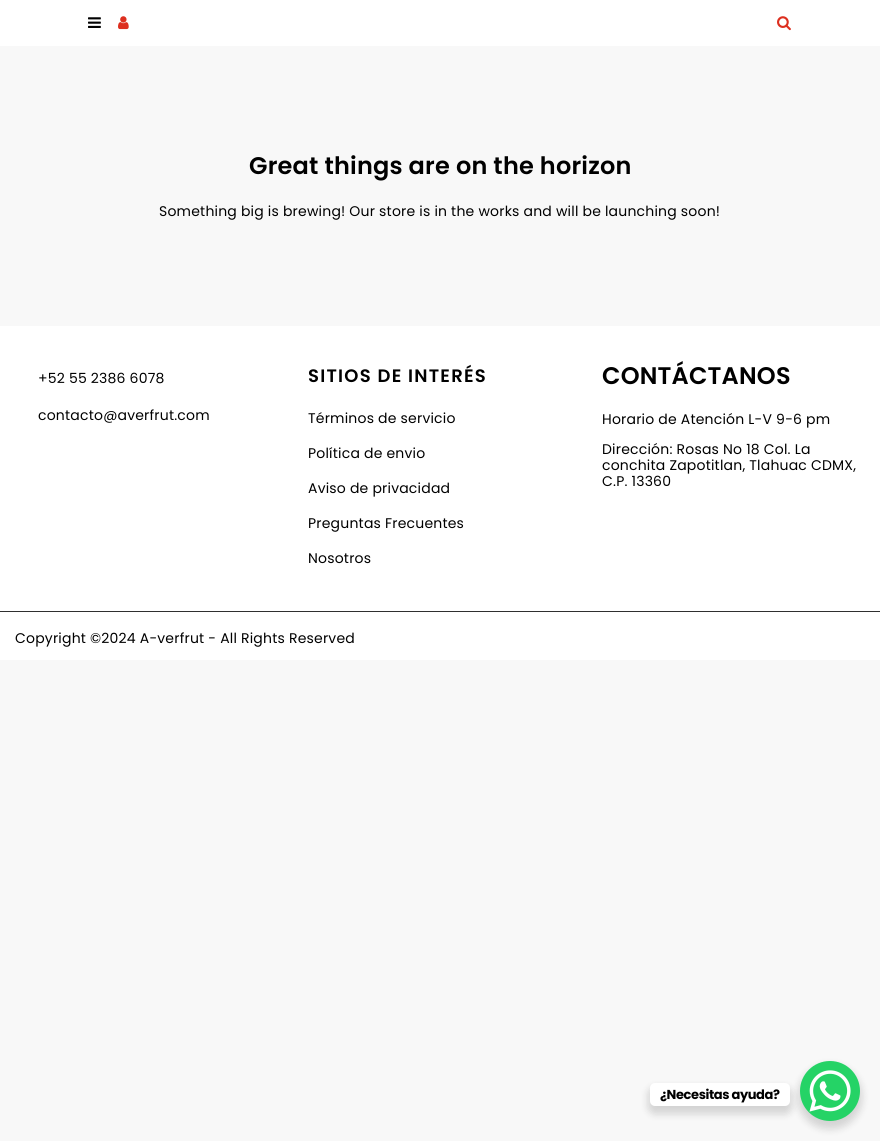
#include <cairo/cairo.h>
#include <math.h>
#include <stddef.h>


static void draw_spaced(cairo_t *cr, double x, double y, const char *s, double letter, double word) {
  cairo_move_to(cr, x, y);
  while (*s) {
    char ch[5] = {0};
    int n = 0;
    do ch[n++] = *s++; while ((*s & 0xC0) == 0x80);
    cairo_show_text(cr, ch);
    cairo_rel_move_to(cr, letter + word * (*ch == ' '), 0);
  }
}

static void rounded_rect(cairo_t *cr, double x, double y, double w, double h, double r) {
  cairo_new_sub_path(cr);
  cairo_arc(cr, x + w - r, y + h - r, r, 0, M_PI / 2);
  cairo_arc(cr, x + r, y + h - r, r, M_PI / 2, M_PI);
  cairo_arc(cr, x + r, y + r, r, M_PI, 1.5 * M_PI);
  cairo_arc(cr, x + w - r, y + r, r, 1.5 * M_PI, 2 * M_PI);
  cairo_close_path(cr);
}

static void draw_shadow(cairo_t *cr, double x, double y, double w, double h, double r, double blur, double alpha) {
  cairo_push_group_with_content(cr, CAIRO_CONTENT_ALPHA);
  cairo_set_operator(cr, CAIRO_OPERATOR_SOURCE);
  for (int i = 15; i >= -15 && fmin(w, h) + blur * i / 3 > 0; i -= 2) {
    double e = blur * i / 6;
    cairo_set_source_rgba(cr, 0, 0, 0, alpha * erfc((i - 1) / 8.5) / 2);
    rounded_rect(cr, x - e, y - e, w + 2 * e, h + 2 * e, fmax(0, fmin(r + e + blur * .6, fmin(w, h) / 2 + e)));
    cairo_fill(cr);
  }
  cairo_pattern_t *soft = cairo_pop_group(cr);
  cairo_mask(cr, soft);
  cairo_pattern_destroy(soft);
}

static void draw_image(cairo_t *cr, const char *path, double x, double y, double w, double h) {
  cairo_surface_t *image = cairo_image_surface_create_from_png(path);
  cairo_save(cr);
  cairo_set_source_surface(cr, image, x, y);
  cairo_rectangle(cr, x, y, w, h);
  cairo_fill(cr);
  cairo_restore(cr);
  cairo_surface_destroy(image);
}

static void draw(cairo_t *cr) {
  cairo_set_source_rgb(cr, 248 / 255.0, 248 / 255.0, 248 / 255.0);
  cairo_paint(cr);
  cairo_set_source_rgb(cr, 1, 1, 1);
  cairo_rectangle(cr, 0, 0, 880, 46);
  cairo_fill(cr);
  draw_image(cr, "images/1.png", 88, 17, 13, 11);
  draw_image(cr, "images/2.png", 118, 16, 11, 14);
  draw_image(cr, "images/3.png", 777, 16, 14, 15);
  cairo_rectangle(cr, 0, 326, 880, 334);
  cairo_fill(cr);
  cairo_set_source_rgb(cr, 47 / 255.0, 47 / 255.0, 47 / 255.0);
  cairo_rectangle(cr, 0, 611, 880, 1);
  cairo_fill(cr);
  cairo_set_source_rgb(cr, 0, 0, 0);
  draw_shadow(cr, 798, 1065, 64, 64, 32, 4, 0.15);
  cairo_set_source_rgb(cr, 37 / 255.0, 211 / 255.0, 102 / 255.0);
  cairo_arc(cr, 830, 1091, 30, 0, 2 * M_PI);
  cairo_fill(cr);
  cairo_set_source_rgb(cr, 0, 0, 0);
  draw_shadow(cr, 648, 1087, 144, 27, 7, 4, 0.15);
  cairo_set_source_rgb(cr, 1, 1, 1);
  rounded_rect(cr, 650, 1083, 140, 23, 5);
  cairo_fill(cr);
  draw_image(cr, "images/4.png", 809, 1070, 42, 42);
  cairo_select_font_face(cr, "Poppins SemiBold", CAIRO_FONT_SLANT_NORMAL, CAIRO_FONT_WEIGHT_NORMAL);
  cairo_set_font_size(cr, 24);
  cairo_set_source_rgb(cr, 0, 0, 0);
  draw_spaced(cr, 249, 174, "Great things are on the horizon", 0.2, 0);
  cairo_select_font_face(cr, "Poppins", CAIRO_FONT_SLANT_NORMAL, CAIRO_FONT_WEIGHT_NORMAL);
  cairo_set_font_size(cr, 14);
  draw_spaced(cr, 159, 216, "Something big is brewing! Our store is in the works and will be launching soon!", 0.2, 0);
  draw_spaced(cr, 38, 383, "+52 55 2386 6078", 0.2, 0);
  draw_spaced(cr, 38, 420, "contacto@averfrut.com", 0.2, 0);
  cairo_select_font_face(cr, "Poppins SemiBold", CAIRO_FONT_SLANT_NORMAL, CAIRO_FONT_WEIGHT_NORMAL);
  cairo_set_font_size(cr, 18);
  draw_spaced(cr, 308, 382, "SITIOS DE INTERÉS", 1.25, 0);
  cairo_select_font_face(cr, "Poppins", CAIRO_FONT_SLANT_NORMAL, CAIRO_FONT_WEIGHT_NORMAL);
  cairo_set_font_size(cr, 14);
  draw_spaced(cr, 308, 423, "Términos de servicio", 0.2, 0);
  draw_spaced(cr, 308, 458, "Política de envio", 0.2, 0);
  draw_spaced(cr, 308, 493, "Aviso de privacidad", 0.2, 0);
  draw_spaced(cr, 308, 528, "Preguntas Frecuentes", 0.2, 0);
  draw_spaced(cr, 308, 563, "Nosotros", 0.2, 0);
  cairo_select_font_face(cr, "Poppins SemiBold", CAIRO_FONT_SLANT_NORMAL, CAIRO_FONT_WEIGHT_NORMAL);
  cairo_set_font_size(cr, 24);
  draw_spaced(cr, 602, 384, "CONTÁCTANOS", 0.2, 0);
  cairo_select_font_face(cr, "Poppins", CAIRO_FONT_SLANT_NORMAL, CAIRO_FONT_WEIGHT_NORMAL);
  cairo_set_font_size(cr, 14);
  draw_spaced(cr, 602, 424, "Horario de Atención L-V 9-6 pm", 0.2, 0);
  draw_spaced(cr, 602, 454, "Dirección: Rosas No 18 Col. La", 0.2, 0);
  draw_spaced(cr, 602, 470, "conchita Zapotitlan, Tlahuac CDMX,", 0.2, 0);
  draw_spaced(cr, 602, 486, "C.P. 13360", 0.2, 0);
  draw_spaced(cr, 15, 643, "Copyright ©2024 A-verfrut - All Rights Reserved", 0.2, 0);
  cairo_select_font_face(cr, "Poppins", CAIRO_FONT_SLANT_NORMAL, CAIRO_FONT_WEIGHT_BOLD);
  cairo_set_font_size(cr, 13);
  draw_spaced(cr, 660, 1099, "¿Necesitas ayuda?", -0.4, 0);
}

int main(void) {
  cairo_surface_t *surface = cairo_image_surface_create(CAIRO_FORMAT_RGB24, 880, 1141);
  cairo_t *cr = cairo_create(surface);
  cairo_font_options_t *options = cairo_font_options_create();
  cairo_font_options_set_hint_metrics(options, CAIRO_HINT_METRICS_OFF);
  cairo_font_options_set_hint_style(options, CAIRO_HINT_STYLE_NONE);
  cairo_set_font_options(cr, options);
  cairo_set_miter_limit(cr, 4);
  draw(cr);
  cairo_surface_write_to_png(surface, "out.png");
  cairo_font_options_destroy(options);
  cairo_destroy(cr);
  cairo_surface_destroy(surface);
  return 0;
}
